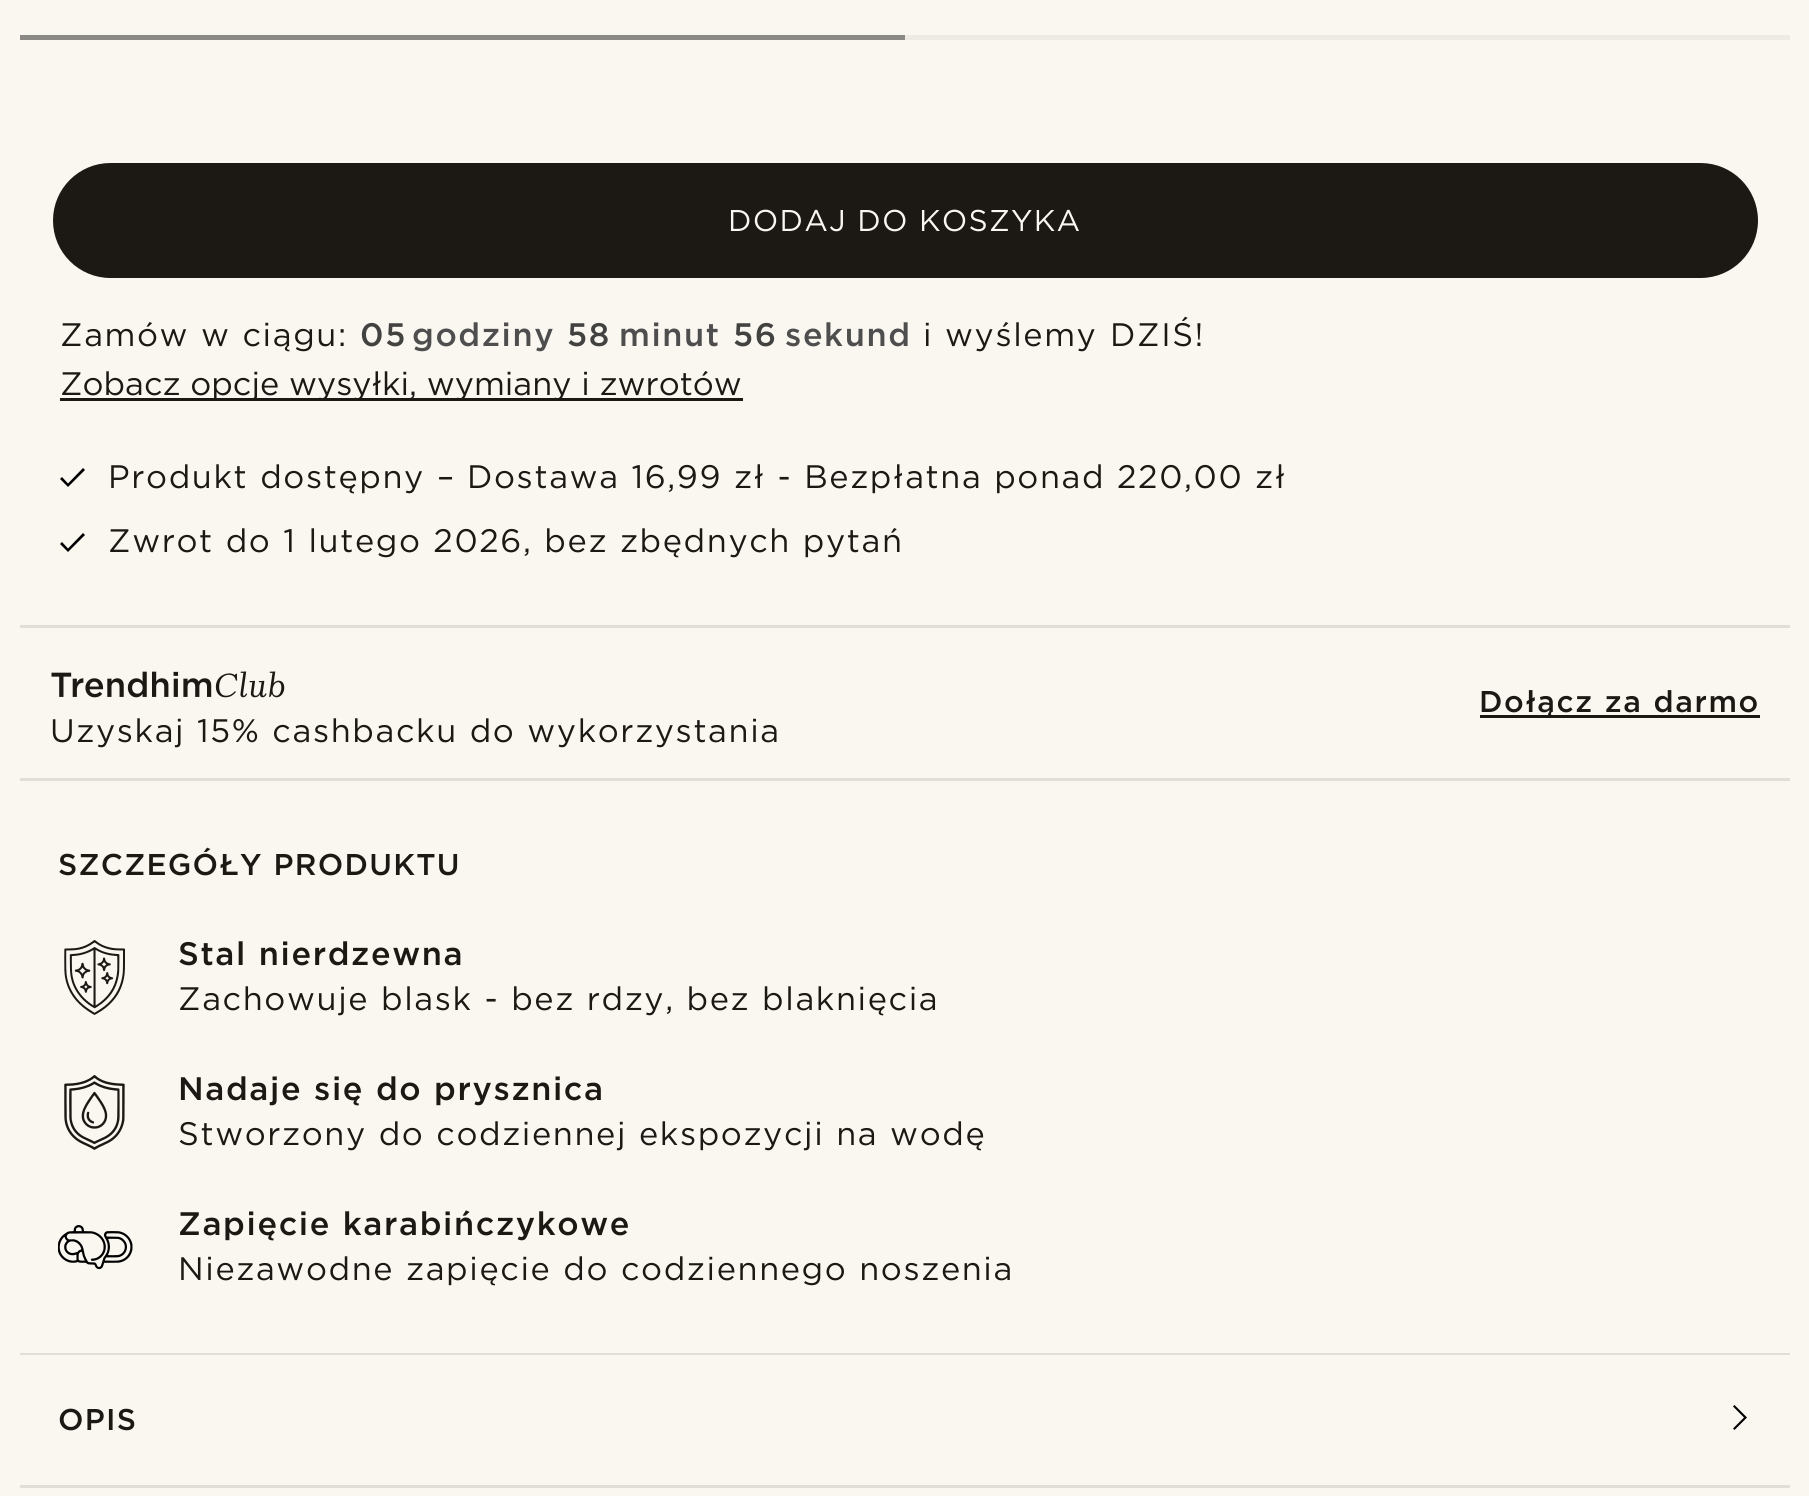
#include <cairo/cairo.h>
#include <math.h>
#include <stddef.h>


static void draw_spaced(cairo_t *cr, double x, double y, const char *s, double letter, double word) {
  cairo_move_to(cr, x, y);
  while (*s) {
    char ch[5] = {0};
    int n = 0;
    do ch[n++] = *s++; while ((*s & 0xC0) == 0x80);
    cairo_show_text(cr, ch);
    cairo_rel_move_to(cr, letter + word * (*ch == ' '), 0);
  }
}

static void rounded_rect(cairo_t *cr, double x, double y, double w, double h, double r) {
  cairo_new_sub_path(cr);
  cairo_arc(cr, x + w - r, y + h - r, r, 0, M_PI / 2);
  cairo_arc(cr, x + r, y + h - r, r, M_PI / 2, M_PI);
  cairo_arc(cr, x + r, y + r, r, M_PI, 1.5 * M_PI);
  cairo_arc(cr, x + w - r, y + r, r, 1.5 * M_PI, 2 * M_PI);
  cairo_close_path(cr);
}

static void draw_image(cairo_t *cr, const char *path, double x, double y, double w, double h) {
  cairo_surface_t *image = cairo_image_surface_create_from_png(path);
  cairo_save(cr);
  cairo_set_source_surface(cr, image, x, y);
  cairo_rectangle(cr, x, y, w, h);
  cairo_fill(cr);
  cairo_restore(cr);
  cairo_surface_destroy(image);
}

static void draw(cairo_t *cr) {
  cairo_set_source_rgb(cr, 250 / 255.0, 246 / 255.0, 240 / 255.0);
  cairo_paint(cr);
  cairo_set_source_rgb(cr, 237 / 255.0, 235 / 255.0, 227 / 255.0);
  cairo_rectangle(cr, 905, 35, 885, 5);
  cairo_fill(cr);
  cairo_set_source_rgb(cr, 139 / 255.0, 137 / 255.0, 134 / 255.0);
  cairo_rectangle(cr, 20, 35, 885, 5);
  cairo_fill(cr);
  cairo_set_source_rgb(cr, 28 / 255.0, 25 / 255.0, 21 / 255.0);
  rounded_rect(cr, 53, 163, 1705, 115, 57.5);
  cairo_fill(cr);
  cairo_rectangle(cr, 60, 398, 683, 3);
  cairo_fill(cr);
  cairo_set_source_rgb(cr, 0, 0, 0);
  cairo_new_path(cr);
  cairo_move_to(cr, 83, 468);
  cairo_line_to(cr, 68, 483.5);
  cairo_line_to(cr, 62, 477);
  cairo_line_to(cr, 60, 479);
  cairo_line_to(cr, 68, 487);
  cairo_line_to(cr, 85, 470);
  cairo_close_path(cr);
  cairo_fill(cr);
  cairo_new_path(cr);
  cairo_move_to(cr, 83, 533);
  cairo_line_to(cr, 68, 548.5);
  cairo_line_to(cr, 62, 542);
  cairo_line_to(cr, 60, 544);
  cairo_line_to(cr, 68, 552);
  cairo_line_to(cr, 85, 535);
  cairo_close_path(cr);
  cairo_fill(cr);
  cairo_set_source_rgb(cr, 224 / 255.0, 223 / 255.0, 213 / 255.0);
  cairo_rectangle(cr, 20, 625, 1770, 3);
  cairo_fill(cr);
  cairo_rectangle(cr, 20, 778, 1770, 3);
  cairo_fill(cr);
  cairo_set_source_rgb(cr, 28 / 255.0, 25 / 255.0, 21 / 255.0);
  cairo_rectangle(cr, 1480, 715, 280, 3);
  cairo_fill(cr);
  draw_image(cr, "images/1.png", 51, 671, 234, 27);
  draw_image(cr, "images/2.png", 64, 940, 61, 75);
  draw_image(cr, "images/3.png", 64, 1075, 61, 75);
  draw_image(cr, "images/4.png", 58, 1225, 75, 45);
  cairo_set_source_rgb(cr, 224 / 255.0, 223 / 255.0, 213 / 255.0);
  cairo_rectangle(cr, 20, 1353, 1770, 2);
  cairo_fill(cr);
  cairo_set_source_rgb(cr, 0, 0, 0);
  cairo_new_path(cr);
  cairo_move_to(cr, 1734.5, 1405);
  cairo_line_to(cr, 1733, 1406.5);
  cairo_line_to(cr, 1744, 1417.5);
  cairo_line_to(cr, 1733, 1428.5);
  cairo_line_to(cr, 1734.5, 1430);
  cairo_line_to(cr, 1747, 1417.5);
  cairo_close_path(cr);
  cairo_fill(cr);
  cairo_set_source_rgb(cr, 224 / 255.0, 223 / 255.0, 213 / 255.0);
  cairo_rectangle(cr, 20, 1485, 1770, 3);
  cairo_fill(cr);
  cairo_select_font_face(cr, "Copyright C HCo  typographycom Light", CAIRO_FONT_SLANT_NORMAL, CAIRO_FONT_WEIGHT_NORMAL);
  cairo_set_font_size(cr, 30);
  cairo_set_source_rgb(cr, 250 / 255.0, 246 / 255.0, 240 / 255.0);
  draw_spaced(cr, 728, 231, "DODAJ DO KOSZYKA", 1.25, 0);
  cairo_set_font_size(cr, 32.5);
  cairo_set_source_rgb(cr, 28 / 255.0, 25 / 255.0, 21 / 255.0);
  draw_spaced(cr, 60, 346, "Zamów w ciągu:", 1.6, 0.5);
  cairo_select_font_face(cr, "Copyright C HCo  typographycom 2 Light", CAIRO_FONT_SLANT_NORMAL, CAIRO_FONT_WEIGHT_NORMAL);
  cairo_set_source_rgb(cr, 66 / 255.0, 66 / 255.0, 64 / 255.0);
  draw_spaced(cr, 360, 346, "05", 1.6, 0);
  cairo_set_source_rgb(cr, 78 / 255.0, 78 / 255.0, 78 / 255.0);
  draw_spaced(cr, 412, 346, "godziny", 1.6, 0);
  cairo_set_source_rgb(cr, 66 / 255.0, 66 / 255.0, 64 / 255.0);
  draw_spaced(cr, 567, 346, "58", 1.6, 0);
  cairo_set_source_rgb(cr, 78 / 255.0, 78 / 255.0, 78 / 255.0);
  draw_spaced(cr, 619, 346, "minut", 1.6, 0);
  cairo_set_source_rgb(cr, 66 / 255.0, 66 / 255.0, 64 / 255.0);
  draw_spaced(cr, 733, 346, "56", 1.6, 0);
  cairo_set_source_rgb(cr, 78 / 255.0, 78 / 255.0, 78 / 255.0);
  draw_spaced(cr, 785, 346, "sekund", 1.6, 0);
  cairo_select_font_face(cr, "Copyright C HCo  typographycom Light", CAIRO_FONT_SLANT_NORMAL, CAIRO_FONT_WEIGHT_NORMAL);
  cairo_set_source_rgb(cr, 28 / 255.0, 25 / 255.0, 21 / 255.0);
  draw_spaced(cr, 923, 346, "i wyślemy", 1.6, 0.5);
  draw_spaced(cr, 1110, 346, "DZIŚ!", 1.6, 0);
  cairo_move_to(cr, 60, 395);
  cairo_show_text(cr, "Zobacz opcje wysyłki, wymiany i zwrotów");
  draw_spaced(cr, 108, 488, "Produkt dostępny", 1.6, 0.5);
  draw_spaced(cr, 437, 488, "–", 1.6, 0);
  draw_spaced(cr, 467, 488, "Dostawa 16,99 zł - Bezpłatna ponad 220,00 zł", 1.6, 0.5);
  draw_spaced(cr, 108, 552, "Zwrot do 1 lutego 2026, bez zbędnych pytań", 1.6, 0.5);
  cairo_select_font_face(cr, "Copyright C HCo  typographycom 2 Light", CAIRO_FONT_SLANT_NORMAL, CAIRO_FONT_WEIGHT_NORMAL);
  cairo_set_font_size(cr, 30);
  draw_spaced(cr, 1479, 712, "Dołącz za darmo", 1.6, 0.5);
  cairo_select_font_face(cr, "Copyright C HCo  typographycom Light", CAIRO_FONT_SLANT_NORMAL, CAIRO_FONT_WEIGHT_NORMAL);
  cairo_set_font_size(cr, 32.5);
  draw_spaced(cr, 50, 742, "Uzyskaj 15% cashbacku do wykorzystania", 1.6, 0.5);
  cairo_select_font_face(cr, "Copyright C HCo  typographycom 2 Light", CAIRO_FONT_SLANT_NORMAL, CAIRO_FONT_WEIGHT_NORMAL);
  cairo_set_font_size(cr, 30);
  draw_spaced(cr, 58, 875, "SZCZEGÓŁY PRODUKTU", 1.25, 0.5);
  cairo_set_font_size(cr, 32.5);
  draw_spaced(cr, 178, 965, "Stal nierdzewna", 1.6, 0.5);
  cairo_select_font_face(cr, "Copyright C HCo  typographycom Light", CAIRO_FONT_SLANT_NORMAL, CAIRO_FONT_WEIGHT_NORMAL);
  draw_spaced(cr, 178, 1010, "Zachowuje blask - bez rdzy, bez blaknięcia", 1.6, 0.5);
  cairo_select_font_face(cr, "Copyright C HCo  typographycom 2 Light", CAIRO_FONT_SLANT_NORMAL, CAIRO_FONT_WEIGHT_NORMAL);
  draw_spaced(cr, 178, 1100, "Nadaje się do prysznica", 1.6, 0.5);
  cairo_select_font_face(cr, "Copyright C HCo  typographycom Light", CAIRO_FONT_SLANT_NORMAL, CAIRO_FONT_WEIGHT_NORMAL);
  draw_spaced(cr, 178, 1145, "Stworzony do codziennej ekspozycji na wodę", 1.6, 0.5);
  cairo_select_font_face(cr, "Copyright C HCo  typographycom 2 Light", CAIRO_FONT_SLANT_NORMAL, CAIRO_FONT_WEIGHT_NORMAL);
  draw_spaced(cr, 178, 1235, "Zapięcie karabińczykowe", 1.6, 0.5);
  cairo_select_font_face(cr, "Copyright C HCo  typographycom Light", CAIRO_FONT_SLANT_NORMAL, CAIRO_FONT_WEIGHT_NORMAL);
  draw_spaced(cr, 178, 1280, "Niezawodne zapięcie do codziennego noszenia", 1.6, 0.5);
  cairo_select_font_face(cr, "Copyright C HCo  typographycom 2 Light", CAIRO_FONT_SLANT_NORMAL, CAIRO_FONT_WEIGHT_NORMAL);
  cairo_set_font_size(cr, 30);
  draw_spaced(cr, 58, 1430, "OPIS", 1.25, 0);
}

int main(void) {
  cairo_surface_t *surface = cairo_image_surface_create(CAIRO_FORMAT_RGB24, 1809, 1496);
  cairo_t *cr = cairo_create(surface);
  cairo_font_options_t *options = cairo_font_options_create();
  cairo_font_options_set_hint_metrics(options, CAIRO_HINT_METRICS_OFF);
  cairo_font_options_set_hint_style(options, CAIRO_HINT_STYLE_NONE);
  cairo_set_font_options(cr, options);
  cairo_set_miter_limit(cr, 4);
  draw(cr);
  cairo_surface_write_to_png(surface, "out.png");
  cairo_font_options_destroy(options);
  cairo_destroy(cr);
  cairo_surface_destroy(surface);
  return 0;
}
